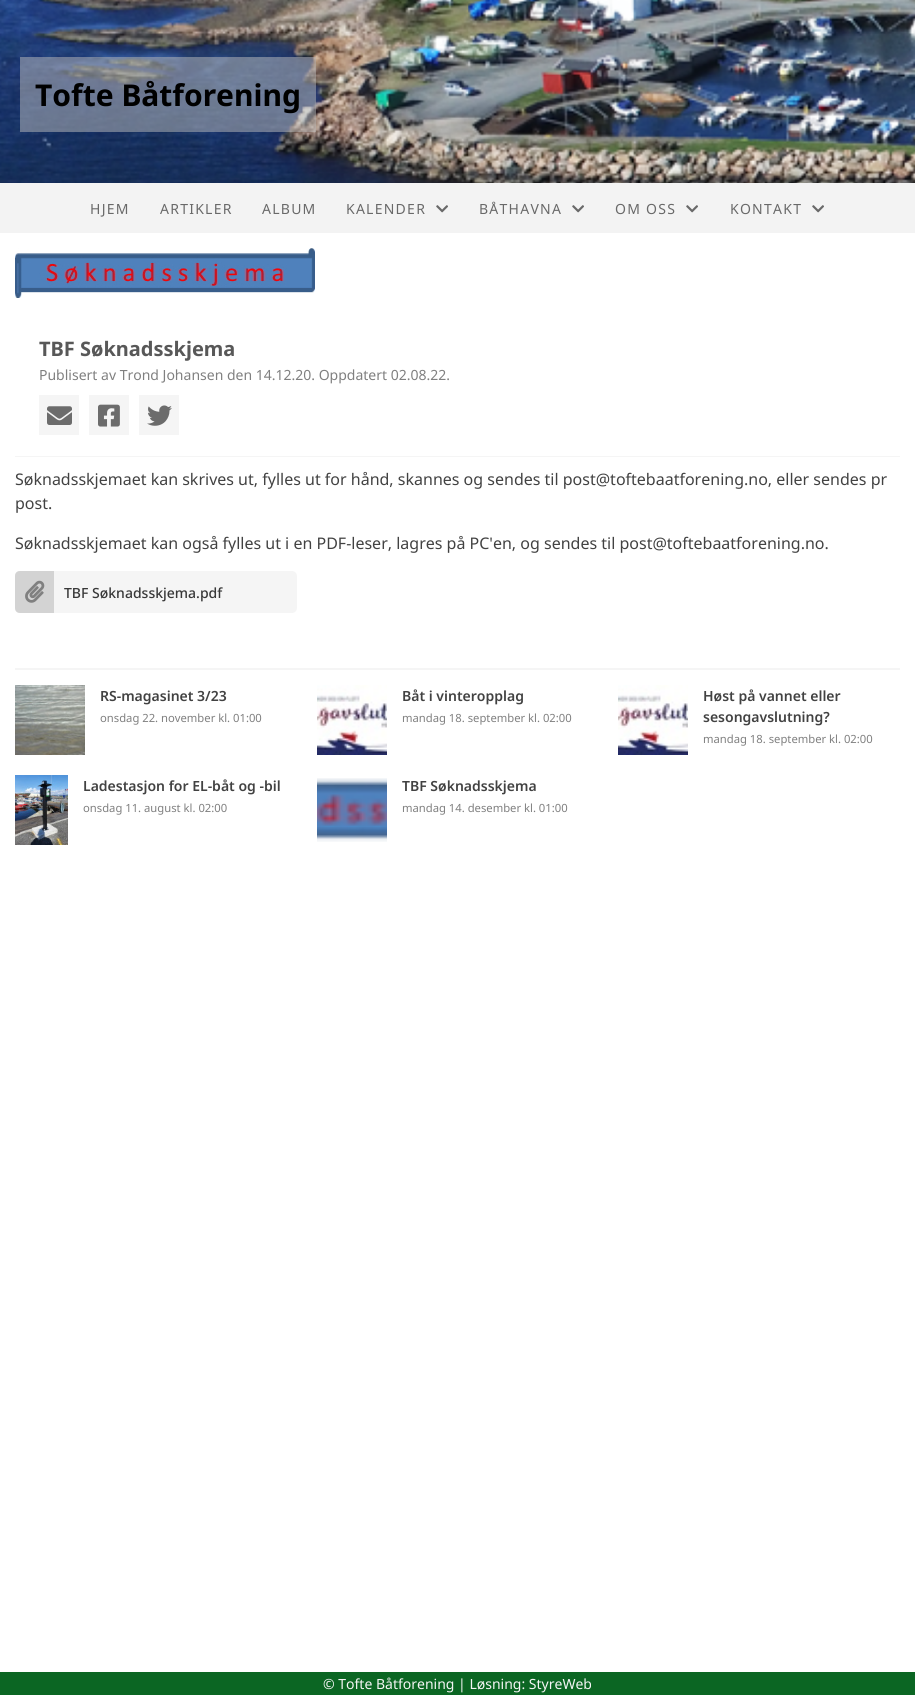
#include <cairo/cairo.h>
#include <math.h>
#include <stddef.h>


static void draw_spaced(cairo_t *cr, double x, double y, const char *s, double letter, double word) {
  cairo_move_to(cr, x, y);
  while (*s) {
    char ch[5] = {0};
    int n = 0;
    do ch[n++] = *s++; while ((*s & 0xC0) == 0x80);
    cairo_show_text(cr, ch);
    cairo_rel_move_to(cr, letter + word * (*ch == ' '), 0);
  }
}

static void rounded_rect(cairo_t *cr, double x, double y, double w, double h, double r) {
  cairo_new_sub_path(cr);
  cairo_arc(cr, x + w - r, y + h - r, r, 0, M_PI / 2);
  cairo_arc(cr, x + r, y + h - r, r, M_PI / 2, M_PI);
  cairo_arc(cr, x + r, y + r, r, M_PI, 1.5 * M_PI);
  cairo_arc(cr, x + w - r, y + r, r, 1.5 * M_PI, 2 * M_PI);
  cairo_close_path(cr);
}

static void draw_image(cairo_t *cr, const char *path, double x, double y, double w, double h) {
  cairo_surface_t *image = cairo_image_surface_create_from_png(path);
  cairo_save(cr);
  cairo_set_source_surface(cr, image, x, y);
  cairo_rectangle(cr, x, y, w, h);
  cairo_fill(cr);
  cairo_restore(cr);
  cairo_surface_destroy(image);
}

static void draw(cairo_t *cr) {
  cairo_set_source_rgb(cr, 1, 1, 1);
  cairo_paint(cr);
  draw_image(cr, "images/1.png", 0, 0, 915, 183);
  cairo_set_source_rgba(cr, 191 / 255.0, 191 / 255.0, 191 / 255.0, 0.5);
  cairo_rectangle(cr, 20, 57, 296, 75);
  cairo_fill(cr);
  cairo_set_source_rgb(cr, 243 / 255.0, 243 / 255.0, 243 / 255.0);
  cairo_rectangle(cr, 0, 183, 915, 50);
  cairo_fill(cr);
  draw_image(cr, "images/2.png", 436, 205, 12, 8);
  draw_image(cr, "images/2.png", 572, 205, 12, 8);
  draw_image(cr, "images/2.png", 686, 205, 12, 8);
  draw_image(cr, "images/2.png", 812, 205, 12, 8);
  draw_image(cr, "images/3.png", 15, 248, 300, 50);
  cairo_set_source_rgb(cr, 245 / 255.0, 245 / 255.0, 245 / 255.0);
  cairo_rectangle(cr, 15, 456, 885, 1);
  cairo_fill(cr);
  cairo_rectangle(cr, 39, 395, 40, 40);
  cairo_fill(cr);
  draw_image(cr, "images/4.png", 47, 406, 25, 19);
  cairo_rectangle(cr, 89, 395, 40, 40);
  cairo_fill(cr);
  draw_image(cr, "images/5.png", 98, 404, 22, 23);
  cairo_rectangle(cr, 139, 395, 40, 40);
  cairo_fill(cr);
  draw_image(cr, "images/6.png", 147, 405, 25, 21);
  rounded_rect(cr, 15, 571, 282, 42, 5);
  cairo_fill(cr);
  cairo_set_source_rgb(cr, 211 / 255.0, 211 / 255.0, 211 / 255.0);
  cairo_new_path(cr);
  cairo_move_to(cr, 20, 571);
  cairo_line_to(cr, 54, 571);
  cairo_line_to(cr, 54, 613);
  cairo_line_to(cr, 20, 613);
  cairo_curve_to(cr, 17, 613, 15, 611, 15, 608);
  cairo_line_to(cr, 15, 576);
  cairo_curve_to(cr, 15, 573, 17, 571, 20, 571);
  cairo_close_path(cr);
  cairo_fill(cr);
  draw_image(cr, "images/7.png", 25, 580, 20, 23);
  cairo_set_source_rgb(cr, 245 / 255.0, 245 / 255.0, 245 / 255.0);
  cairo_rectangle(cr, 15, 668, 885, 2);
  cairo_fill(cr);
  draw_image(cr, "images/8.png", 15, 685, 70, 70);
  draw_image(cr, "images/9.png", 317, 685, 70, 70);
  draw_image(cr, "images/9.png", 618, 685, 70, 70);
  draw_image(cr, "images/10.png", 15, 775, 53, 70);
  draw_image(cr, "images/11.png", 317, 778, 70, 64);
  cairo_set_source_rgb(cr, 11 / 255.0, 102 / 255.0, 35 / 255.0);
  cairo_rectangle(cr, 0, 1672, 915, 23);
  cairo_fill(cr);
  cairo_select_font_face(cr, "Noto Sans", CAIRO_FONT_SLANT_NORMAL, CAIRO_FONT_WEIGHT_BOLD);
  cairo_set_font_size(cr, 30);
  cairo_set_source_rgb(cr, 0, 0, 0);
  cairo_move_to(cr, 35, 106);
  cairo_show_text(cr, "Tofte Båtforening");
  cairo_select_font_face(cr, "Noto Sans", CAIRO_FONT_SLANT_NORMAL, CAIRO_FONT_WEIGHT_NORMAL);
  cairo_set_font_size(cr, 14);
  cairo_set_source_rgb(cr, 105 / 255.0, 105 / 255.0, 105 / 255.0);
  draw_spaced(cr, 90, 214, "HJEM", 1.25, 0);
  draw_spaced(cr, 160, 214, "ARTIKLER", 1.25, 0);
  draw_spaced(cr, 262, 214, "ALBUM", 1.25, 0);
  draw_spaced(cr, 346, 214, "KALENDER", 1.25, 0);
  draw_spaced(cr, 479, 214, "BÅTHAVNA", 1.25, 0);
  draw_spaced(cr, 615, 214, "OM OSS", 1.25, 0);
  draw_spaced(cr, 730, 214, "KONTAKT", 1.25, 0);
  cairo_select_font_face(cr, "Noto Sans", CAIRO_FONT_SLANT_NORMAL, CAIRO_FONT_WEIGHT_BOLD);
  cairo_set_font_size(cr, 20);
  cairo_set_source_rgb(cr, 88 / 255.0, 88 / 255.0, 88 / 255.0);
  cairo_move_to(cr, 39, 356);
  cairo_show_text(cr, "TBF Søknadsskjema");
  cairo_select_font_face(cr, "Noto Sans", CAIRO_FONT_SLANT_NORMAL, CAIRO_FONT_WEIGHT_NORMAL);
  cairo_set_font_size(cr, 14);
  cairo_set_source_rgb(cr, 128 / 255.0, 128 / 255.0, 128 / 255.0);
  cairo_move_to(cr, 39, 380);
  cairo_show_text(cr, "Publisert av Trond Johansen den 14.12.20. Oppdatert 02.08.22.");
  cairo_set_font_size(cr, 16);
  cairo_set_source_rgb(cr, 66 / 255.0, 66 / 255.0, 66 / 255.0);
  cairo_move_to(cr, 15, 485);
  cairo_show_text(cr, "Søknadsskjemaet kan skrives ut, fylles ut for hånd, skannes og sendes til post@toftebaatforening.no, eller sendes pr");
  cairo_move_to(cr, 15, 509);
  cairo_show_text(cr, "post.");
  cairo_move_to(cr, 15, 549);
  cairo_show_text(cr, "Søknadsskjemaet kan også fylles ut i en PDF-leser, lagres på PC'en, og sendes til post@toftebaatforening.no.");
  cairo_select_font_face(cr, "Noto Sans Medium", CAIRO_FONT_SLANT_NORMAL, CAIRO_FONT_WEIGHT_NORMAL);
  cairo_set_font_size(cr, 14);
  cairo_set_source_rgb(cr, 56 / 255.0, 56 / 255.0, 56 / 255.0);
  cairo_move_to(cr, 64, 598);
  cairo_show_text(cr, "TBF Søknadsskjema.pdf");
  cairo_select_font_face(cr, "Noto Sans SemiBold", CAIRO_FONT_SLANT_NORMAL, CAIRO_FONT_WEIGHT_NORMAL);
  cairo_set_source_rgb(cr, 66 / 255.0, 66 / 255.0, 66 / 255.0);
  cairo_move_to(cr, 100, 701);
  cairo_show_text(cr, "RS-magasinet 3/23");
  cairo_select_font_face(cr, "Noto Sans", CAIRO_FONT_SLANT_NORMAL, CAIRO_FONT_WEIGHT_NORMAL);
  cairo_set_font_size(cr, 11.25);
  cairo_set_source_rgb(cr, 128 / 255.0, 128 / 255.0, 128 / 255.0);
  cairo_move_to(cr, 100, 722);
  cairo_show_text(cr, "onsdag 22. november kl. 01:00");
  cairo_select_font_face(cr, "Noto Sans SemiBold", CAIRO_FONT_SLANT_NORMAL, CAIRO_FONT_WEIGHT_NORMAL);
  cairo_set_font_size(cr, 14);
  cairo_set_source_rgb(cr, 66 / 255.0, 66 / 255.0, 66 / 255.0);
  cairo_move_to(cr, 402, 701);
  cairo_show_text(cr, "Båt i vinteropplag");
  cairo_select_font_face(cr, "Noto Sans", CAIRO_FONT_SLANT_NORMAL, CAIRO_FONT_WEIGHT_NORMAL);
  cairo_set_font_size(cr, 11.25);
  cairo_set_source_rgb(cr, 128 / 255.0, 128 / 255.0, 128 / 255.0);
  cairo_move_to(cr, 402, 722);
  cairo_show_text(cr, "mandag 18. september kl. 02:00");
  cairo_select_font_face(cr, "Noto Sans SemiBold", CAIRO_FONT_SLANT_NORMAL, CAIRO_FONT_WEIGHT_NORMAL);
  cairo_set_font_size(cr, 14);
  cairo_set_source_rgb(cr, 66 / 255.0, 66 / 255.0, 66 / 255.0);
  cairo_move_to(cr, 703, 701);
  cairo_show_text(cr, "Høst på vannet eller");
  cairo_move_to(cr, 703, 722);
  cairo_show_text(cr, "sesongavslutning?");
  cairo_select_font_face(cr, "Noto Sans", CAIRO_FONT_SLANT_NORMAL, CAIRO_FONT_WEIGHT_NORMAL);
  cairo_set_font_size(cr, 11.25);
  cairo_set_source_rgb(cr, 128 / 255.0, 128 / 255.0, 128 / 255.0);
  cairo_move_to(cr, 703, 743);
  cairo_show_text(cr, "mandag 18. september kl. 02:00");
  cairo_select_font_face(cr, "Noto Sans SemiBold", CAIRO_FONT_SLANT_NORMAL, CAIRO_FONT_WEIGHT_NORMAL);
  cairo_set_font_size(cr, 14);
  cairo_set_source_rgb(cr, 66 / 255.0, 66 / 255.0, 66 / 255.0);
  cairo_move_to(cr, 83, 791);
  cairo_show_text(cr, "Ladestasjon for EL-båt og -bil");
  cairo_select_font_face(cr, "Noto Sans", CAIRO_FONT_SLANT_NORMAL, CAIRO_FONT_WEIGHT_NORMAL);
  cairo_set_font_size(cr, 11.25);
  cairo_set_source_rgb(cr, 128 / 255.0, 128 / 255.0, 128 / 255.0);
  cairo_move_to(cr, 83, 812);
  cairo_show_text(cr, "onsdag 11. august kl. 02:00");
  cairo_select_font_face(cr, "Noto Sans SemiBold", CAIRO_FONT_SLANT_NORMAL, CAIRO_FONT_WEIGHT_NORMAL);
  cairo_set_font_size(cr, 14);
  cairo_set_source_rgb(cr, 66 / 255.0, 66 / 255.0, 66 / 255.0);
  cairo_move_to(cr, 402, 791);
  cairo_show_text(cr, "TBF Søknadsskjema");
  cairo_select_font_face(cr, "Noto Sans", CAIRO_FONT_SLANT_NORMAL, CAIRO_FONT_WEIGHT_NORMAL);
  cairo_set_font_size(cr, 11.25);
  cairo_set_source_rgb(cr, 128 / 255.0, 128 / 255.0, 128 / 255.0);
  cairo_move_to(cr, 402, 812);
  cairo_show_text(cr, "mandag 14. desember kl. 01:00");
  cairo_set_font_size(cr, 14);
  cairo_set_source_rgb(cr, 245 / 255.0, 245 / 255.0, 245 / 255.0);
  cairo_move_to(cr, 323, 1689);
  cairo_show_text(cr, "© Tofte Båtforening | Løsning: StyreWeb");
}

int main(void) {
  cairo_surface_t *surface = cairo_image_surface_create(CAIRO_FORMAT_RGB24, 915, 1695);
  cairo_t *cr = cairo_create(surface);
  cairo_font_options_t *options = cairo_font_options_create();
  cairo_font_options_set_hint_metrics(options, CAIRO_HINT_METRICS_OFF);
  cairo_font_options_set_hint_style(options, CAIRO_HINT_STYLE_NONE);
  cairo_set_font_options(cr, options);
  cairo_set_miter_limit(cr, 4);
  draw(cr);
  cairo_surface_write_to_png(surface, "out.png");
  cairo_font_options_destroy(options);
  cairo_destroy(cr);
  cairo_surface_destroy(surface);
  return 0;
}
